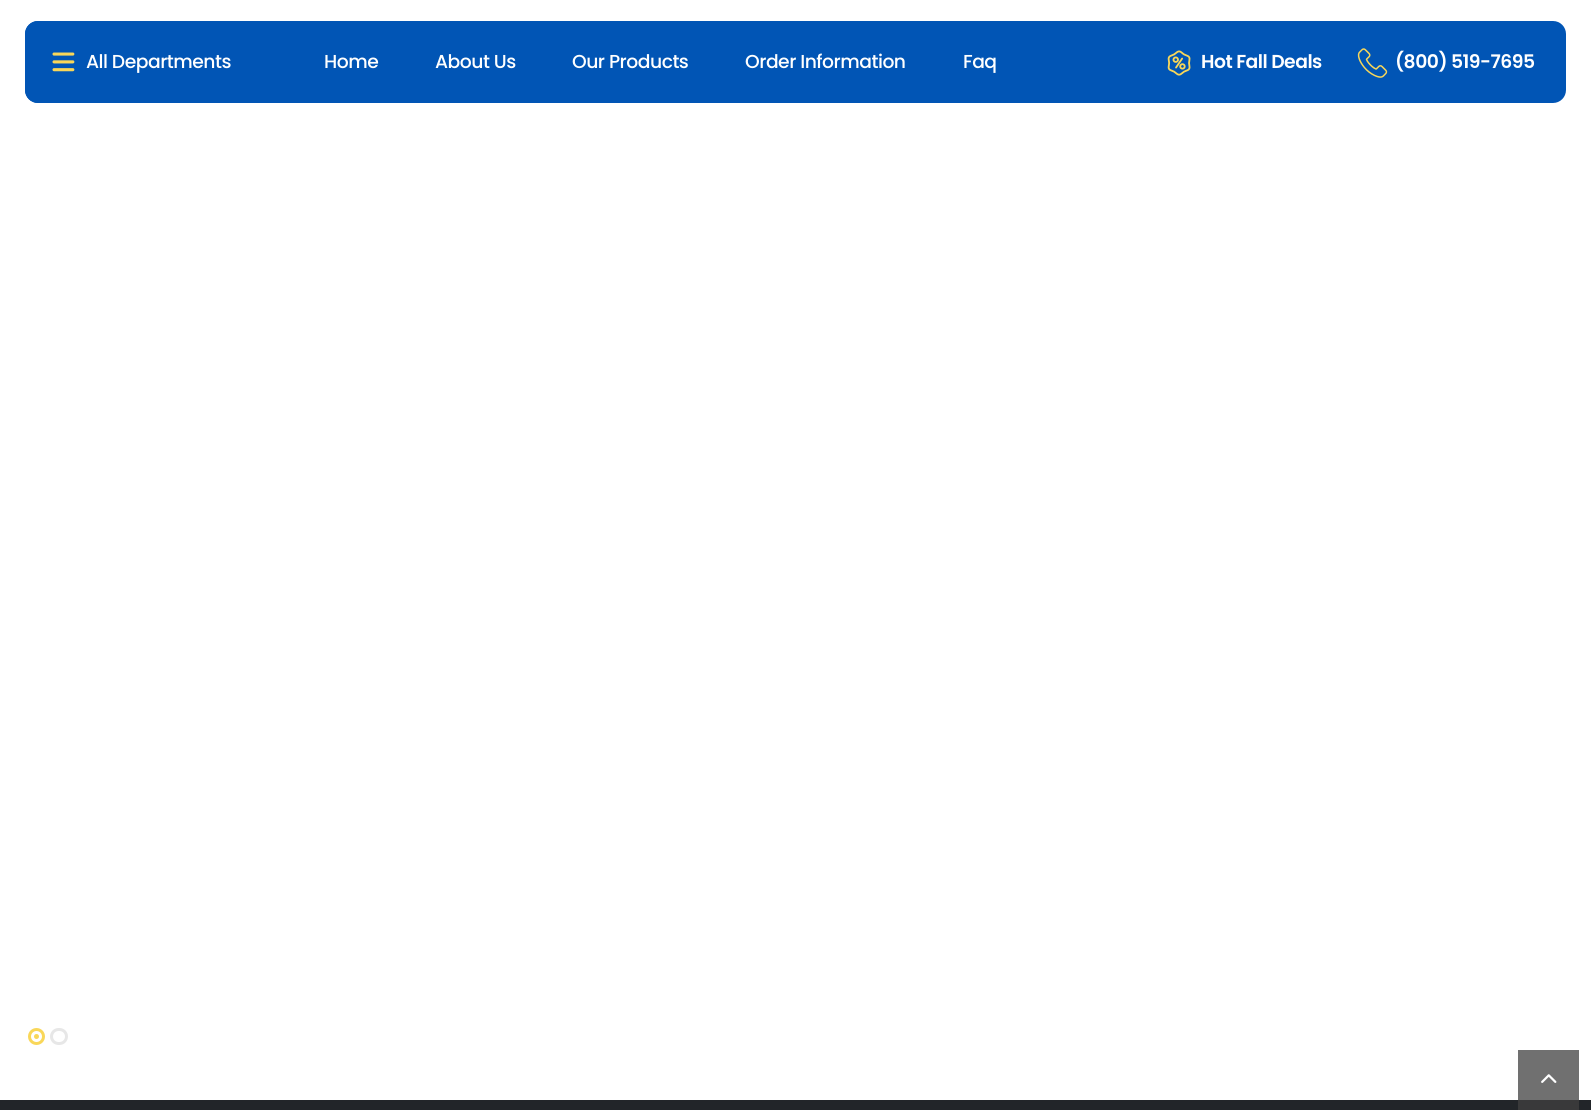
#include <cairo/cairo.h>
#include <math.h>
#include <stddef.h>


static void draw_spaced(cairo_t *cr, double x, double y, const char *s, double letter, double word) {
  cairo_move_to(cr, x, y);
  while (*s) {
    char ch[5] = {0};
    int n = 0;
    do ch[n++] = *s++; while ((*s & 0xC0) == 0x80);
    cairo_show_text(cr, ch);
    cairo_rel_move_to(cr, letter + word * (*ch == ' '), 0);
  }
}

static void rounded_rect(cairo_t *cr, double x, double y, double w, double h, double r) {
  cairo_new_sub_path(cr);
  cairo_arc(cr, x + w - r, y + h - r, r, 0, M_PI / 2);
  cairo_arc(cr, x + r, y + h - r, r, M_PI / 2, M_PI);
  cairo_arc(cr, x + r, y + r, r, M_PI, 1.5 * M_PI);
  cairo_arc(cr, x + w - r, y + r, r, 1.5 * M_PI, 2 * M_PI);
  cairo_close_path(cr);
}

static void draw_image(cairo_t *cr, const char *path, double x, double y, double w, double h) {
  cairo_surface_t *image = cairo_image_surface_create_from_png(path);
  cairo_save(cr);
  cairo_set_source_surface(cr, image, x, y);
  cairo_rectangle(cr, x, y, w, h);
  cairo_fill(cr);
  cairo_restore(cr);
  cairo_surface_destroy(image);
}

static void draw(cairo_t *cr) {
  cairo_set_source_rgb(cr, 1, 1, 1);
  cairo_paint(cr);
  cairo_set_source_rgb(cr, 112 / 255.0, 112 / 255.0, 112 / 255.0);
  cairo_rectangle(cr, 1518, 1050, 61, 50);
  cairo_fill(cr);
  cairo_set_source_rgb(cr, 1 / 255.0, 85 / 255.0, 181 / 255.0);
  rounded_rect(cr, 25, 21, 1541, 82, 13);
  cairo_fill(cr);
  rounded_rect(cr, 25, 21, 283, 82, 13);
  cairo_fill(cr);
  draw_image(cr, "images/1.png", 52, 52, 23, 20);
  draw_image(cr, "images/2.png", 1167, 50, 24, 26);
  draw_image(cr, "images/3.png", 1357, 48, 31, 30);
  cairo_arc(cr, 36.5, 1036.5, 7, 0, 2 * M_PI);
  cairo_set_source_rgb(cr, 249 / 255.0, 215 / 255.0, 89 / 255.0);
  cairo_set_line_width(cr, 3);
  cairo_stroke(cr);
  cairo_arc(cr, 36.5, 1036.5, 2.5, 0, 2 * M_PI);
  cairo_fill(cr);
  rounded_rect(cr, 51.5, 1029.5, 15, 14, 7);
  cairo_set_source_rgb(cr, 231 / 255.0, 231 / 255.0, 231 / 255.0);
  cairo_stroke(cr);
  cairo_set_source_rgb(cr, 34 / 255.0, 37 / 255.0, 41 / 255.0);
  cairo_rectangle(cr, 0, 1100, 1591, 10);
  cairo_fill(cr);
  cairo_set_source_rgb(cr, 57 / 255.0, 57 / 255.0, 58 / 255.0);
  cairo_rectangle(cr, 1518, 1100, 61, 10);
  cairo_fill(cr);
  draw_image(cr, "images/4.png", 1541, 1074, 16, 9);
  cairo_select_font_face(cr, "Poppins Medium", CAIRO_FONT_SLANT_NORMAL, CAIRO_FONT_WEIGHT_NORMAL);
  cairo_set_font_size(cr, 18.75);
  cairo_set_source_rgb(cr, 1, 1, 1);
  draw_spaced(cr, 86, 68, "All Departments", -0.5, 0);
  draw_spaced(cr, 324, 68, "Home", -0.5, 0);
  draw_spaced(cr, 435, 68, "About Us", -0.5, 0);
  draw_spaced(cr, 572, 68, "Our Products", -0.5, 0);
  draw_spaced(cr, 745, 68, "Order Information", -0.5, 0);
  draw_spaced(cr, 963, 68, "Faq", -0.5, 0);
  cairo_select_font_face(cr, "Poppins SemiBold", CAIRO_FONT_SLANT_NORMAL, CAIRO_FONT_WEIGHT_NORMAL);
  draw_spaced(cr, 1201, 68, "Hot Fall Deals", -0.5, 0);
  draw_spaced(cr, 1395, 68, "(800) 519-7695", -0.5, 0);
}

int main(void) {
  cairo_surface_t *surface = cairo_image_surface_create(CAIRO_FORMAT_RGB24, 1591, 1110);
  cairo_t *cr = cairo_create(surface);
  cairo_font_options_t *options = cairo_font_options_create();
  cairo_font_options_set_hint_metrics(options, CAIRO_HINT_METRICS_OFF);
  cairo_font_options_set_hint_style(options, CAIRO_HINT_STYLE_NONE);
  cairo_set_font_options(cr, options);
  cairo_set_miter_limit(cr, 4);
  draw(cr);
  cairo_surface_write_to_png(surface, "out.png");
  cairo_font_options_destroy(options);
  cairo_destroy(cr);
  cairo_surface_destroy(surface);
  return 0;
}
